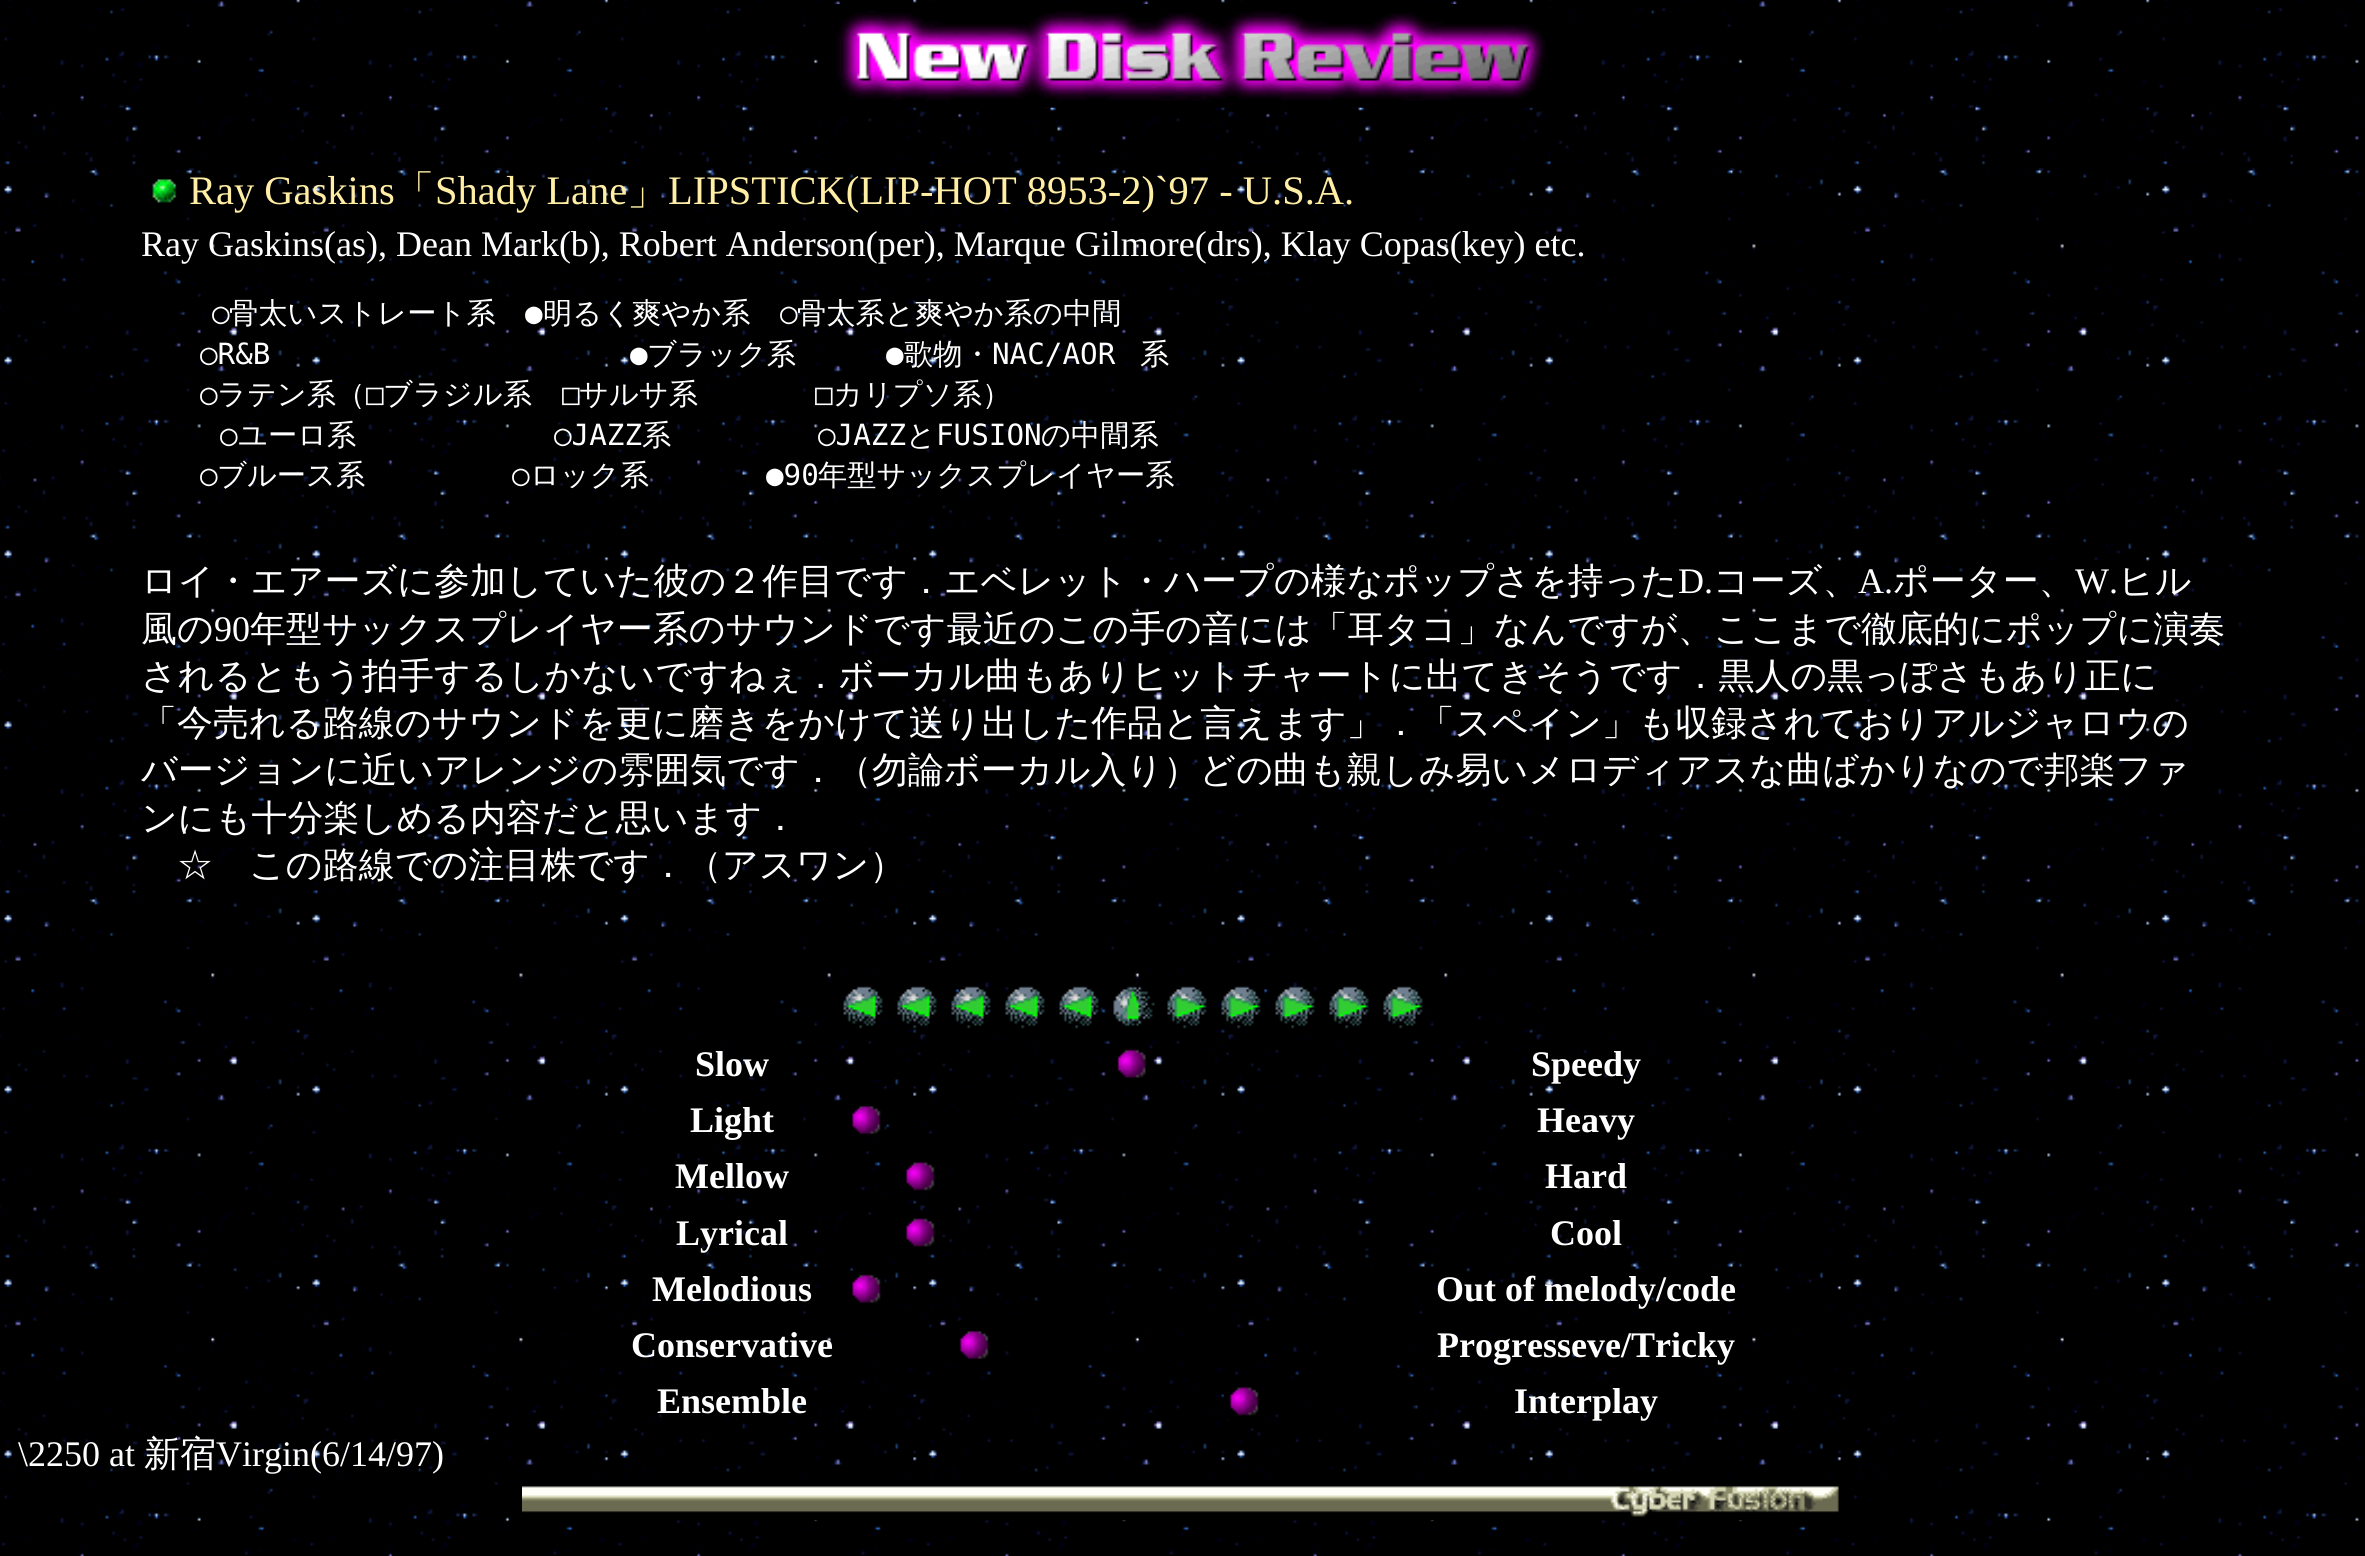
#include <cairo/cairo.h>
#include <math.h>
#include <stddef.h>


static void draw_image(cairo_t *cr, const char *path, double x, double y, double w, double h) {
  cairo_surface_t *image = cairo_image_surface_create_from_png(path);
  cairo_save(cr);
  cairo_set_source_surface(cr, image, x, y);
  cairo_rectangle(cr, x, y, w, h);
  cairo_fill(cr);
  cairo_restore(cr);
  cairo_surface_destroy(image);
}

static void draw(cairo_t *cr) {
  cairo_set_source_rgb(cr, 0, 0, 0);
  cairo_paint(cr);
  draw_image(cr, "images/1.png", 0, 0, 2363, 1556);
  draw_image(cr, "images/2.png", 832, 4, 718, 104);
  draw_image(cr, "images/3.png", 152, 179, 25, 24);
  draw_image(cr, "images/4.png", 843, 986, 40, 43);
  draw_image(cr, "images/5.png", 897, 986, 40, 43);
  draw_image(cr, "images/6.png", 951, 986, 41, 43);
  draw_image(cr, "images/7.png", 1005, 986, 40, 43);
  draw_image(cr, "images/8.png", 1059, 986, 42, 43);
  draw_image(cr, "images/9.png", 1113, 986, 42, 41);
  draw_image(cr, "images/10.png", 1167, 986, 40, 43);
  draw_image(cr, "images/11.png", 1221, 986, 40, 43);
  draw_image(cr, "images/12.png", 1275, 986, 40, 43);
  draw_image(cr, "images/13.png", 1329, 986, 40, 43);
  draw_image(cr, "images/14.png", 1383, 986, 42, 43);
  draw_image(cr, "images/15.png", 1117, 1045, 33, 35);
  draw_image(cr, "images/16.png", 852, 1106, 33, 29);
  draw_image(cr, "images/17.png", 906, 1162, 29, 29);
  draw_image(cr, "images/18.png", 900, 1216, 35, 35);
  draw_image(cr, "images/19.png", 850, 1270, 35, 33);
  draw_image(cr, "images/20.png", 955, 1331, 36, 29);
  draw_image(cr, "images/21.png", 1224, 1387, 35, 33);
  draw_image(cr, "images/22.png", 522, 1481, 1317, 40);
  cairo_select_font_face(cr, "Liberation Serif", CAIRO_FONT_SLANT_NORMAL, CAIRO_FONT_WEIGHT_NORMAL);
  cairo_set_font_size(cr, 40.5);
  cairo_set_source_rgb(cr, 1, 238 / 255.0, 164 / 255.0);
  cairo_move_to(cr, 189, 204);
  cairo_show_text(cr, "Ray Gaskins");
  cairo_select_font_face(cr, "WenQuanYi Zen Hei Medium", CAIRO_FONT_SLANT_NORMAL, CAIRO_FONT_WEIGHT_NORMAL);
  cairo_move_to(cr, 394, 204);
  cairo_show_text(cr, "「");
  cairo_select_font_face(cr, "Liberation Serif", CAIRO_FONT_SLANT_NORMAL, CAIRO_FONT_WEIGHT_NORMAL);
  cairo_move_to(cr, 435, 204);
  cairo_show_text(cr, "Shady Lane");
  cairo_select_font_face(cr, "WenQuanYi Zen Hei Medium", CAIRO_FONT_SLANT_NORMAL, CAIRO_FONT_WEIGHT_NORMAL);
  cairo_move_to(cr, 627, 204);
  cairo_show_text(cr, "」");
  cairo_select_font_face(cr, "Liberation Serif", CAIRO_FONT_SLANT_NORMAL, CAIRO_FONT_WEIGHT_NORMAL);
  cairo_move_to(cr, 668, 204);
  cairo_show_text(cr, "LIPSTICK(LIP-HOT 8953-2)`97 - U.S.A.");
  cairo_set_font_size(cr, 36);
  cairo_set_source_rgb(cr, 1, 1, 1);
  cairo_move_to(cr, 141, 256);
  cairo_show_text(cr, "Ray Gaskins(as), Dean Mark(b), Robert Anderson(per), Marque Gilmore(drs), Klay Copas(key) etc.");
  cairo_select_font_face(cr, "DejaVu Sans Mono", CAIRO_FONT_SLANT_NORMAL, CAIRO_FONT_WEIGHT_NORMAL);
  cairo_set_font_size(cr, 29.25);
  cairo_move_to(cr, 212, 323);
  cairo_show_text(cr, "○");
  cairo_select_font_face(cr, "WenQuanYi Zen Hei Medium", CAIRO_FONT_SLANT_NORMAL, CAIRO_FONT_WEIGHT_NORMAL);
  cairo_move_to(cr, 229, 323);
  cairo_show_text(cr, "骨太いストレート系");
  cairo_select_font_face(cr, "DejaVu Sans Mono", CAIRO_FONT_SLANT_NORMAL, CAIRO_FONT_WEIGHT_NORMAL);
  cairo_move_to(cr, 525, 323);
  cairo_show_text(cr, "●");
  cairo_select_font_face(cr, "WenQuanYi Zen Hei Medium", CAIRO_FONT_SLANT_NORMAL, CAIRO_FONT_WEIGHT_NORMAL);
  cairo_move_to(cr, 543, 323);
  cairo_show_text(cr, "明るく爽やか系");
  cairo_select_font_face(cr, "DejaVu Sans Mono", CAIRO_FONT_SLANT_NORMAL, CAIRO_FONT_WEIGHT_NORMAL);
  cairo_move_to(cr, 780, 323);
  cairo_show_text(cr, "○");
  cairo_select_font_face(cr, "WenQuanYi Zen Hei Medium", CAIRO_FONT_SLANT_NORMAL, CAIRO_FONT_WEIGHT_NORMAL);
  cairo_move_to(cr, 797, 323);
  cairo_show_text(cr, "骨太系と爽やか系の中間");
  cairo_select_font_face(cr, "DejaVu Sans Mono", CAIRO_FONT_SLANT_NORMAL, CAIRO_FONT_WEIGHT_NORMAL);
  cairo_move_to(cr, 200, 364);
  cairo_show_text(cr, "○R&B");
  cairo_move_to(cr, 630, 364);
  cairo_show_text(cr, "●");
  cairo_select_font_face(cr, "WenQuanYi Zen Hei Medium", CAIRO_FONT_SLANT_NORMAL, CAIRO_FONT_WEIGHT_NORMAL);
  cairo_move_to(cr, 647, 364);
  cairo_show_text(cr, "ブラック系");
  cairo_select_font_face(cr, "DejaVu Sans Mono", CAIRO_FONT_SLANT_NORMAL, CAIRO_FONT_WEIGHT_NORMAL);
  cairo_move_to(cr, 886, 364);
  cairo_show_text(cr, "●");
  cairo_select_font_face(cr, "WenQuanYi Zen Hei Medium", CAIRO_FONT_SLANT_NORMAL, CAIRO_FONT_WEIGHT_NORMAL);
  cairo_move_to(cr, 904, 364);
  cairo_show_text(cr, "歌物・");
  cairo_select_font_face(cr, "DejaVu Sans Mono", CAIRO_FONT_SLANT_NORMAL, CAIRO_FONT_WEIGHT_NORMAL);
  cairo_move_to(cr, 992, 364);
  cairo_show_text(cr, "NAC/AOR");
  cairo_select_font_face(cr, "WenQuanYi Zen Hei Medium", CAIRO_FONT_SLANT_NORMAL, CAIRO_FONT_WEIGHT_NORMAL);
  cairo_move_to(cr, 1140, 364);
  cairo_show_text(cr, "系");
  cairo_select_font_face(cr, "DejaVu Sans Mono", CAIRO_FONT_SLANT_NORMAL, CAIRO_FONT_WEIGHT_NORMAL);
  cairo_move_to(cr, 200, 404);
  cairo_show_text(cr, "○");
  cairo_select_font_face(cr, "WenQuanYi Zen Hei Medium", CAIRO_FONT_SLANT_NORMAL, CAIRO_FONT_WEIGHT_NORMAL);
  cairo_move_to(cr, 217, 404);
  cairo_show_text(cr, "ラテン系（");
  cairo_select_font_face(cr, "DejaVu Sans Mono", CAIRO_FONT_SLANT_NORMAL, CAIRO_FONT_WEIGHT_NORMAL);
  cairo_move_to(cr, 366, 404);
  cairo_show_text(cr, "□");
  cairo_select_font_face(cr, "WenQuanYi Zen Hei Medium", CAIRO_FONT_SLANT_NORMAL, CAIRO_FONT_WEIGHT_NORMAL);
  cairo_move_to(cr, 383, 404);
  cairo_show_text(cr, "ブラジル系");
  cairo_select_font_face(cr, "DejaVu Sans Mono", CAIRO_FONT_SLANT_NORMAL, CAIRO_FONT_WEIGHT_NORMAL);
  cairo_move_to(cr, 562, 404);
  cairo_show_text(cr, "□");
  cairo_select_font_face(cr, "WenQuanYi Zen Hei Medium", CAIRO_FONT_SLANT_NORMAL, CAIRO_FONT_WEIGHT_NORMAL);
  cairo_move_to(cr, 579, 404);
  cairo_show_text(cr, "サルサ系");
  cairo_select_font_face(cr, "DejaVu Sans Mono", CAIRO_FONT_SLANT_NORMAL, CAIRO_FONT_WEIGHT_NORMAL);
  cairo_move_to(cr, 815, 404);
  cairo_show_text(cr, "□");
  cairo_select_font_face(cr, "WenQuanYi Zen Hei Medium", CAIRO_FONT_SLANT_NORMAL, CAIRO_FONT_WEIGHT_NORMAL);
  cairo_move_to(cr, 833, 404);
  cairo_show_text(cr, "カリプソ系）");
  cairo_select_font_face(cr, "DejaVu Sans Mono", CAIRO_FONT_SLANT_NORMAL, CAIRO_FONT_WEIGHT_NORMAL);
  cairo_move_to(cr, 220, 445);
  cairo_show_text(cr, "○");
  cairo_select_font_face(cr, "WenQuanYi Zen Hei Medium", CAIRO_FONT_SLANT_NORMAL, CAIRO_FONT_WEIGHT_NORMAL);
  cairo_move_to(cr, 238, 445);
  cairo_show_text(cr, "ユーロ系");
  cairo_select_font_face(cr, "DejaVu Sans Mono", CAIRO_FONT_SLANT_NORMAL, CAIRO_FONT_WEIGHT_NORMAL);
  cairo_move_to(cr, 554, 445);
  cairo_show_text(cr, "○JAZZ");
  cairo_select_font_face(cr, "WenQuanYi Zen Hei Medium", CAIRO_FONT_SLANT_NORMAL, CAIRO_FONT_WEIGHT_NORMAL);
  cairo_move_to(cr, 642, 445);
  cairo_show_text(cr, "系");
  cairo_select_font_face(cr, "DejaVu Sans Mono", CAIRO_FONT_SLANT_NORMAL, CAIRO_FONT_WEIGHT_NORMAL);
  cairo_move_to(cr, 818, 445);
  cairo_show_text(cr, "○JAZZ");
  cairo_select_font_face(cr, "WenQuanYi Zen Hei Medium", CAIRO_FONT_SLANT_NORMAL, CAIRO_FONT_WEIGHT_NORMAL);
  cairo_move_to(cr, 906, 445);
  cairo_show_text(cr, "と");
  cairo_select_font_face(cr, "DejaVu Sans Mono", CAIRO_FONT_SLANT_NORMAL, CAIRO_FONT_WEIGHT_NORMAL);
  cairo_move_to(cr, 936, 445);
  cairo_show_text(cr, "FUSION");
  cairo_select_font_face(cr, "WenQuanYi Zen Hei Medium", CAIRO_FONT_SLANT_NORMAL, CAIRO_FONT_WEIGHT_NORMAL);
  cairo_move_to(cr, 1041, 445);
  cairo_show_text(cr, "の中間系");
  cairo_select_font_face(cr, "DejaVu Sans Mono", CAIRO_FONT_SLANT_NORMAL, CAIRO_FONT_WEIGHT_NORMAL);
  cairo_move_to(cr, 200, 485);
  cairo_show_text(cr, "○");
  cairo_select_font_face(cr, "WenQuanYi Zen Hei Medium", CAIRO_FONT_SLANT_NORMAL, CAIRO_FONT_WEIGHT_NORMAL);
  cairo_move_to(cr, 217, 485);
  cairo_show_text(cr, "ブルース系");
  cairo_select_font_face(cr, "DejaVu Sans Mono", CAIRO_FONT_SLANT_NORMAL, CAIRO_FONT_WEIGHT_NORMAL);
  cairo_move_to(cr, 512, 485);
  cairo_show_text(cr, "○");
  cairo_select_font_face(cr, "WenQuanYi Zen Hei Medium", CAIRO_FONT_SLANT_NORMAL, CAIRO_FONT_WEIGHT_NORMAL);
  cairo_move_to(cr, 530, 485);
  cairo_show_text(cr, "ロック系");
  cairo_select_font_face(cr, "DejaVu Sans Mono", CAIRO_FONT_SLANT_NORMAL, CAIRO_FONT_WEIGHT_NORMAL);
  cairo_move_to(cr, 766, 485);
  cairo_show_text(cr, "●90");
  cairo_select_font_face(cr, "WenQuanYi Zen Hei Medium", CAIRO_FONT_SLANT_NORMAL, CAIRO_FONT_WEIGHT_NORMAL);
  cairo_move_to(cr, 818, 485);
  cairo_show_text(cr, "年型サックスプレイヤー系");
  cairo_set_font_size(cr, 36);
  cairo_move_to(cr, 141, 593);
  cairo_show_text(cr, "ロイ・エアーズに参加していた彼の２作目です．エベレット・ハープの様なポップさを持った");
  cairo_select_font_face(cr, "Liberation Serif", CAIRO_FONT_SLANT_NORMAL, CAIRO_FONT_WEIGHT_NORMAL);
  cairo_move_to(cr, 1678, 593);
  cairo_show_text(cr, "D.");
  cairo_select_font_face(cr, "WenQuanYi Zen Hei Medium", CAIRO_FONT_SLANT_NORMAL, CAIRO_FONT_WEIGHT_NORMAL);
  cairo_move_to(cr, 1713, 593);
  cairo_show_text(cr, "コーズ、");
  cairo_select_font_face(cr, "Liberation Serif", CAIRO_FONT_SLANT_NORMAL, CAIRO_FONT_WEIGHT_NORMAL);
  cairo_move_to(cr, 1858, 593);
  cairo_show_text(cr, "A.");
  cairo_select_font_face(cr, "WenQuanYi Zen Hei Medium", CAIRO_FONT_SLANT_NORMAL, CAIRO_FONT_WEIGHT_NORMAL);
  cairo_move_to(cr, 1893, 593);
  cairo_show_text(cr, "ポーター、");
  cairo_select_font_face(cr, "Liberation Serif", CAIRO_FONT_SLANT_NORMAL, CAIRO_FONT_WEIGHT_NORMAL);
  cairo_move_to(cr, 2075, 593);
  cairo_show_text(cr, "W.");
  cairo_select_font_face(cr, "WenQuanYi Zen Hei Medium", CAIRO_FONT_SLANT_NORMAL, CAIRO_FONT_WEIGHT_NORMAL);
  cairo_move_to(cr, 2118, 593);
  cairo_show_text(cr, "ヒル");
  cairo_move_to(cr, 141, 641);
  cairo_show_text(cr, "風の");
  cairo_select_font_face(cr, "Liberation Serif", CAIRO_FONT_SLANT_NORMAL, CAIRO_FONT_WEIGHT_NORMAL);
  cairo_move_to(cr, 214, 641);
  cairo_show_text(cr, "90");
  cairo_select_font_face(cr, "WenQuanYi Zen Hei Medium", CAIRO_FONT_SLANT_NORMAL, CAIRO_FONT_WEIGHT_NORMAL);
  cairo_move_to(cr, 250, 641);
  cairo_show_text(cr, "年型サックスプレイヤー系のサウンドです最近のこの手の音には「耳タコ」なんですが、ここまで徹底的にポップに演奏");
  cairo_move_to(cr, 141, 688);
  cairo_show_text(cr, "されるともう拍手するしかないですねぇ．ボーカル曲もありヒットチャートに出てきそうです．黒人の黒っぽさもあり正に");
  cairo_move_to(cr, 141, 735);
  cairo_show_text(cr, "「今売れる路線のサウンドを更に磨きをかけて送り出した作品と言えます」．「スペイン」も収録されておりアルジャロウの");
  cairo_move_to(cr, 141, 782);
  cairo_show_text(cr, "バージョンに近いアレンジの雰囲気です．（勿論ボーカル入り）どの曲も親しみ易いメロディアスな曲ばかりなので邦楽ファ");
  cairo_move_to(cr, 141, 830);
  cairo_show_text(cr, "ンにも十分楽しめる内容だと思います．");
  cairo_move_to(cr, 177, 877);
  cairo_show_text(cr, "☆　この路線での注目株です．（アスワン）");
  cairo_select_font_face(cr, "Liberation Serif", CAIRO_FONT_SLANT_NORMAL, CAIRO_FONT_WEIGHT_BOLD);
  cairo_move_to(cr, 695, 1076);
  cairo_show_text(cr, "Slow");
  cairo_move_to(cr, 1531, 1076);
  cairo_show_text(cr, "Speedy");
  cairo_move_to(cr, 690, 1132);
  cairo_show_text(cr, "Light");
  cairo_move_to(cr, 1537, 1132);
  cairo_show_text(cr, "Heavy");
  cairo_move_to(cr, 675, 1188);
  cairo_show_text(cr, "Mellow");
  cairo_move_to(cr, 1545, 1188);
  cairo_show_text(cr, "Hard");
  cairo_move_to(cr, 676, 1245);
  cairo_show_text(cr, "Lyrical");
  cairo_move_to(cr, 1550, 1245);
  cairo_show_text(cr, "Cool");
  cairo_move_to(cr, 652, 1301);
  cairo_show_text(cr, "Melodious");
  cairo_move_to(cr, 1436, 1301);
  cairo_show_text(cr, "Out of melody/code");
  cairo_move_to(cr, 631, 1357);
  cairo_show_text(cr, "Conservative");
  cairo_move_to(cr, 1437, 1357);
  cairo_show_text(cr, "Progresseve/Tricky");
  cairo_move_to(cr, 657, 1413);
  cairo_show_text(cr, "Ensemble");
  cairo_move_to(cr, 1514, 1413);
  cairo_show_text(cr, "Interplay");
  cairo_select_font_face(cr, "Liberation Serif", CAIRO_FONT_SLANT_NORMAL, CAIRO_FONT_WEIGHT_NORMAL);
  cairo_move_to(cr, 18, 1466);
  cairo_show_text(cr, "\\2250 at");
  cairo_select_font_face(cr, "WenQuanYi Zen Hei Medium", CAIRO_FONT_SLANT_NORMAL, CAIRO_FONT_WEIGHT_NORMAL);
  cairo_move_to(cr, 144, 1466);
  cairo_show_text(cr, "新宿");
  cairo_select_font_face(cr, "Liberation Serif", CAIRO_FONT_SLANT_NORMAL, CAIRO_FONT_WEIGHT_NORMAL);
  cairo_move_to(cr, 216, 1466);
  cairo_show_text(cr, "Virgin(6/14/97)");
}

int main(void) {
  cairo_surface_t *surface = cairo_image_surface_create(CAIRO_FORMAT_RGB24, 2365, 1556);
  cairo_t *cr = cairo_create(surface);
  cairo_font_options_t *options = cairo_font_options_create();
  cairo_font_options_set_hint_metrics(options, CAIRO_HINT_METRICS_OFF);
  cairo_font_options_set_hint_style(options, CAIRO_HINT_STYLE_NONE);
  cairo_set_font_options(cr, options);
  cairo_set_miter_limit(cr, 4);
  draw(cr);
  cairo_surface_write_to_png(surface, "out.png");
  cairo_font_options_destroy(options);
  cairo_destroy(cr);
  cairo_surface_destroy(surface);
  return 0;
}
